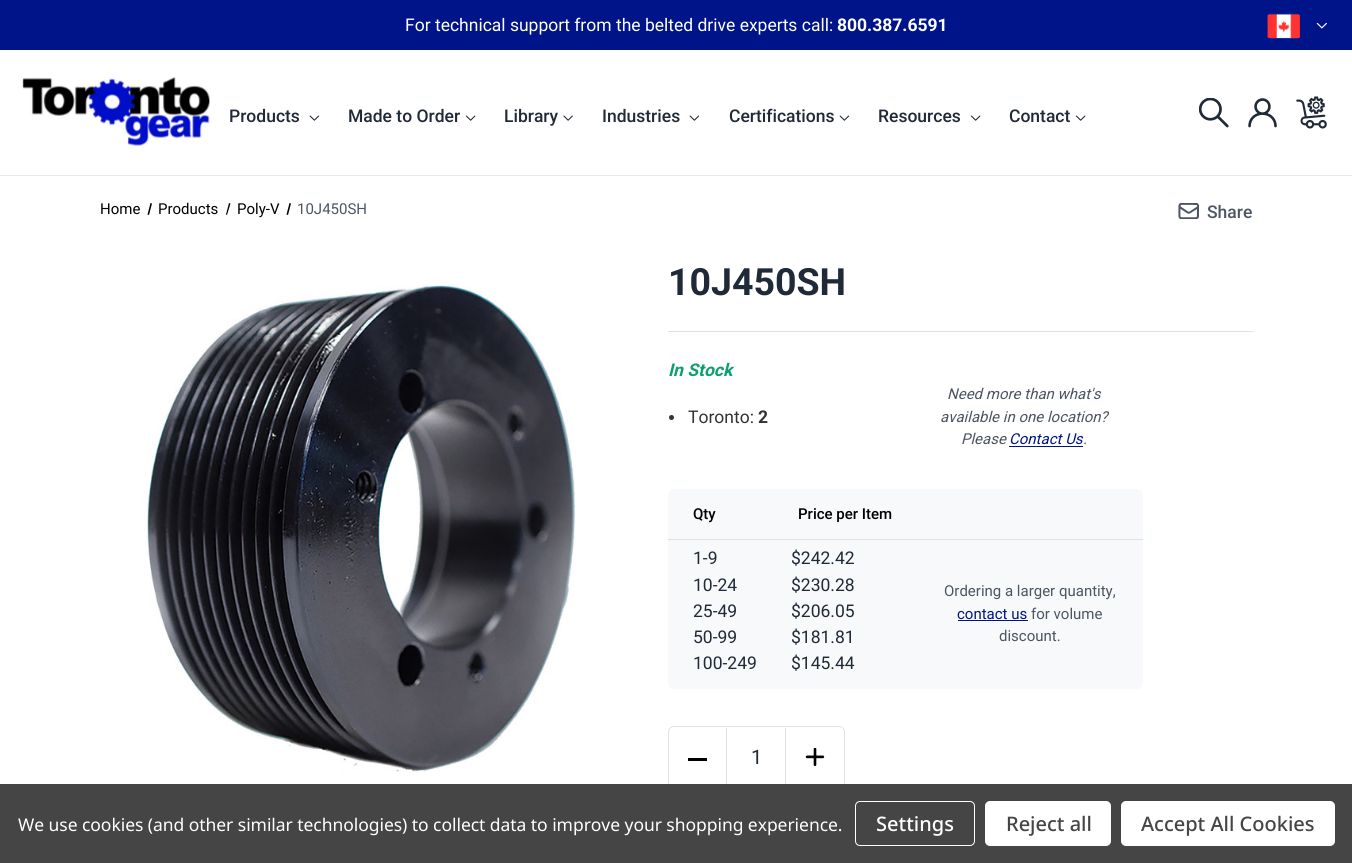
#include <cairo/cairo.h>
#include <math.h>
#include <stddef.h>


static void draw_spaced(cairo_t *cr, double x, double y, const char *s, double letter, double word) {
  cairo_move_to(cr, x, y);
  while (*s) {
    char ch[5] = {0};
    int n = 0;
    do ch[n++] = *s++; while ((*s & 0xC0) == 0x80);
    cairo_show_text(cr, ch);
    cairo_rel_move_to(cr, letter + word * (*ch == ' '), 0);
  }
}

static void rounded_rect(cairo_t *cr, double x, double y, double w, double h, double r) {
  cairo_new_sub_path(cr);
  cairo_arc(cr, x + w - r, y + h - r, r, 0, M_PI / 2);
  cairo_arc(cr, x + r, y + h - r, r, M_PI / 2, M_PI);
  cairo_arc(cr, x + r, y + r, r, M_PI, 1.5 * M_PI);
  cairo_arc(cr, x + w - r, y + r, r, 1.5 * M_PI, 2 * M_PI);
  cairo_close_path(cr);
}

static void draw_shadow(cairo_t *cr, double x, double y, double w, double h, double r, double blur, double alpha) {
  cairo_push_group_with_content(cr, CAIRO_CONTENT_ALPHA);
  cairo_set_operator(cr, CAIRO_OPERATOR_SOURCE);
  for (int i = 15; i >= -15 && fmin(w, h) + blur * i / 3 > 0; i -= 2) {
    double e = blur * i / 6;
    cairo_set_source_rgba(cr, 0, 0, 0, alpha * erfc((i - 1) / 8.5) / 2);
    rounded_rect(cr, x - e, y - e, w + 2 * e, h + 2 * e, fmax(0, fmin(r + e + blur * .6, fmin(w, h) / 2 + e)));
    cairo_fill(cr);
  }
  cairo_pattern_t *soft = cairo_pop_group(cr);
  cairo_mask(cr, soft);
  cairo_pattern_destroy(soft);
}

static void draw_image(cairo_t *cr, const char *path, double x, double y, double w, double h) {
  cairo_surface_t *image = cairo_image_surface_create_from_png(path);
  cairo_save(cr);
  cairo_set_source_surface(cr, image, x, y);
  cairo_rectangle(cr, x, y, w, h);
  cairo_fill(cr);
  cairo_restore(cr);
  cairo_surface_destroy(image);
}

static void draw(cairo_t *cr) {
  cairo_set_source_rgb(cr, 1, 1, 1);
  cairo_paint(cr);
  cairo_set_source_rgb(cr, 0, 20 / 255.0, 137 / 255.0);
  cairo_rectangle(cr, 0, 0, 1352, 50);
  cairo_fill(cr);
  draw_image(cr, "images/1.png", 1267, 13, 33, 26);
  draw_image(cr, "images/2.png", 1316, 23, 11, 6);
  cairo_save(cr);
  cairo_rectangle(cr, 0, 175, 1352, 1);
  cairo_clip(cr);
  cairo_set_source_rgb(cr, 0, 0, 0);
  draw_shadow(cr, 0, 51, 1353, 125, 0, 0.5, 0.1);
  cairo_restore(cr);
  draw_image(cr, "images/3.png", 22, 77, 188, 69);
  draw_image(cr, "images/4.png", 309, 115, 11, 6);
  draw_image(cr, "images/5.png", 465, 115, 11, 6);
  draw_image(cr, "images/6.png", 563, 115, 10, 6);
  draw_image(cr, "images/4.png", 689, 115, 11, 6);
  draw_image(cr, "images/4.png", 839, 115, 11, 6);
  draw_image(cr, "images/5.png", 970, 115, 11, 6);
  draw_image(cr, "images/5.png", 1075, 115, 11, 6);
  draw_image(cr, "images/7.png", 1199, 98, 30, 30);
  draw_image(cr, "images/8.png", 1248, 98, 29, 30);
  draw_image(cr, "images/9.png", 1296, 96, 31, 33);
  cairo_set_source_rgb(cr, 0, 0, 0);
  cairo_new_path(cr);
  cairo_move_to(cr, 150.5, 203);
  cairo_line_to(cr, 152, 203.5);
  cairo_line_to(cr, 149, 215);
  cairo_line_to(cr, 147.5, 214.5);
  cairo_close_path(cr);
  cairo_fill(cr);
  cairo_new_path(cr);
  cairo_move_to(cr, 229, 203);
  cairo_line_to(cr, 230.5, 203.5);
  cairo_line_to(cr, 227, 215);
  cairo_line_to(cr, 226, 214.5);
  cairo_close_path(cr);
  cairo_fill(cr);
  cairo_new_path(cr);
  cairo_move_to(cr, 289.5, 203);
  cairo_line_to(cr, 291, 203.5);
  cairo_line_to(cr, 288, 215);
  cairo_line_to(cr, 286.5, 214.5);
  cairo_close_path(cr);
  cairo_fill(cr);
  draw_image(cr, "images/10.png", 1178, 203, 21, 16);
  draw_image(cr, "images/11.png", 143, 281, 433, 492);
  cairo_set_source_rgb(cr, 223 / 255.0, 226 / 255.0, 229 / 255.0);
  cairo_rectangle(cr, 668, 331, 585, 1);
  cairo_fill(cr);
  cairo_set_source_rgb(cr, 51 / 255.0, 51 / 255.0, 51 / 255.0);
  cairo_arc(cr, 671.5, 417.5, 2.5, 0, 2 * M_PI);
  cairo_fill(cr);
  cairo_set_source_rgb(cr, 0, 20 / 255.0, 137 / 255.0);
  cairo_rectangle(cr, 1009, 446, 74, 1);
  cairo_fill(cr);
  cairo_set_source_rgb(cr, 248 / 255.0, 249 / 255.0, 250 / 255.0);
  rounded_rect(cr, 668, 489, 475, 200, 6);
  cairo_fill(cr);
  cairo_set_source_rgb(cr, 223 / 255.0, 226 / 255.0, 229 / 255.0);
  cairo_rectangle(cr, 668, 539, 475, 1);
  cairo_fill(cr);
  cairo_set_source_rgb(cr, 0, 20 / 255.0, 137 / 255.0);
  cairo_rectangle(cr, 958, 620, 70, 1);
  cairo_fill(cr);
  rounded_rect(cr, 668.5, 726.5, 176, 62, 5.5);
  cairo_set_source_rgb(cr, 223 / 255.0, 226 / 255.0, 229 / 255.0);
  cairo_set_line_width(cr, 1);
  cairo_stroke(cr);
  cairo_rectangle(cr, 726, 728, 1, 60);
  cairo_fill(cr);
  cairo_set_source_rgb(cr, 0, 0, 0);
  cairo_rectangle(cr, 688, 758, 19, 3);
  cairo_fill(cr);
  cairo_set_source_rgb(cr, 223 / 255.0, 226 / 255.0, 229 / 255.0);
  cairo_rectangle(cr, 785, 728, 1, 60);
  cairo_fill(cr);
  draw_image(cr, "images/12.png", 805, 748, 20, 18);
  cairo_set_source_rgb(cr, 69 / 255.0, 69 / 255.0, 69 / 255.0);
  cairo_rectangle(cr, 0, 784, 1352, 79);
  cairo_fill(cr);
  rounded_rect(cr, 855.5, 801.5, 119, 44, 4.5);
  cairo_set_source_rgb(cr, 1, 1, 1);
  cairo_stroke(cr);
  rounded_rect(cr, 985, 801, 126, 45, 5);
  cairo_fill(cr);
  rounded_rect(cr, 1121, 801, 214, 45, 5);
  cairo_fill(cr);
  cairo_select_font_face(cr, "Roboto", CAIRO_FONT_SLANT_NORMAL, CAIRO_FONT_WEIGHT_NORMAL);
  cairo_set_font_size(cr, 17.5);
  cairo_move_to(cr, 405, 31);
  cairo_show_text(cr, "For technical support from the belted drive experts call:");
  cairo_select_font_face(cr, "Roboto", CAIRO_FONT_SLANT_NORMAL, CAIRO_FONT_WEIGHT_BOLD);
  cairo_move_to(cr, 837, 31);
  cairo_show_text(cr, "800.387.6591");
  cairo_select_font_face(cr, "Roboto Medium", CAIRO_FONT_SLANT_NORMAL, CAIRO_FONT_WEIGHT_NORMAL);
  cairo_set_source_rgb(cr, 31 / 255.0, 41 / 255.0, 55 / 255.0);
  cairo_move_to(cr, 229, 122);
  cairo_show_text(cr, "Products");
  cairo_move_to(cr, 348, 122);
  cairo_show_text(cr, "Made to Order");
  cairo_move_to(cr, 504, 122);
  cairo_show_text(cr, "Library");
  cairo_move_to(cr, 602, 122);
  cairo_show_text(cr, "Industries");
  cairo_move_to(cr, 729, 122);
  cairo_show_text(cr, "Certifications");
  cairo_move_to(cr, 878, 122);
  cairo_show_text(cr, "Resources");
  cairo_move_to(cr, 1009, 122);
  cairo_show_text(cr, "Contact");
  cairo_select_font_face(cr, "Roboto", CAIRO_FONT_SLANT_NORMAL, CAIRO_FONT_WEIGHT_NORMAL);
  cairo_set_font_size(cr, 15);
  cairo_set_source_rgb(cr, 0, 0, 0);
  cairo_move_to(cr, 100, 214);
  cairo_show_text(cr, "Home");
  cairo_move_to(cr, 158, 214);
  cairo_show_text(cr, "Products");
  cairo_move_to(cr, 237, 214);
  cairo_show_text(cr, "Poly-V");
  cairo_set_source_rgb(cr, 75 / 255.0, 85 / 255.0, 99 / 255.0);
  cairo_move_to(cr, 297, 214);
  cairo_show_text(cr, "10J450SH");
  cairo_select_font_face(cr, "Roboto Medium", CAIRO_FONT_SLANT_NORMAL, CAIRO_FONT_WEIGHT_NORMAL);
  cairo_set_font_size(cr, 17.5);
  cairo_move_to(cr, 1207, 218);
  cairo_show_text(cr, "Share");
  cairo_select_font_face(cr, "Roboto", CAIRO_FONT_SLANT_NORMAL, CAIRO_FONT_WEIGHT_BOLD);
  cairo_set_font_size(cr, 37.5);
  cairo_set_source_rgb(cr, 31 / 255.0, 41 / 255.0, 55 / 255.0);
  cairo_move_to(cr, 668, 295);
  cairo_show_text(cr, "10J450SH");
  cairo_select_font_face(cr, "Roboto", CAIRO_FONT_SLANT_ITALIC, CAIRO_FONT_WEIGHT_BOLD);
  cairo_set_font_size(cr, 17.5);
  cairo_set_source_rgb(cr, 14 / 255.0, 159 / 255.0, 110 / 255.0);
  cairo_move_to(cr, 668, 376);
  cairo_show_text(cr, "In Stock");
  cairo_select_font_face(cr, "Roboto", CAIRO_FONT_SLANT_NORMAL, CAIRO_FONT_WEIGHT_NORMAL);
  cairo_set_source_rgb(cr, 51 / 255.0, 51 / 255.0, 51 / 255.0);
  cairo_move_to(cr, 688, 423);
  cairo_show_text(cr, "Toronto:");
  cairo_select_font_face(cr, "Roboto", CAIRO_FONT_SLANT_NORMAL, CAIRO_FONT_WEIGHT_BOLD);
  cairo_move_to(cr, 758, 423);
  cairo_show_text(cr, "2");
  cairo_select_font_face(cr, "Roboto", CAIRO_FONT_SLANT_ITALIC, CAIRO_FONT_WEIGHT_NORMAL);
  cairo_set_font_size(cr, 15);
  cairo_set_source_rgb(cr, 75 / 255.0, 85 / 255.0, 99 / 255.0);
  cairo_move_to(cr, 947, 399);
  cairo_show_text(cr, "Need more than what's");
  cairo_move_to(cr, 940, 422);
  cairo_show_text(cr, "available in one location?");
  cairo_move_to(cr, 961, 444);
  cairo_show_text(cr, "Please");
  cairo_set_source_rgb(cr, 0, 20 / 255.0, 137 / 255.0);
  cairo_move_to(cr, 1009, 444);
  cairo_show_text(cr, "Contact Us");
  cairo_set_source_rgb(cr, 75 / 255.0, 85 / 255.0, 99 / 255.0);
  cairo_move_to(cr, 1083, 444);
  cairo_show_text(cr, ".");
  cairo_select_font_face(cr, "Roboto Medium", CAIRO_FONT_SLANT_NORMAL, CAIRO_FONT_WEIGHT_NORMAL);
  cairo_set_source_rgb(cr, 0, 0, 0);
  cairo_move_to(cr, 693, 519);
  cairo_show_text(cr, "Qty");
  cairo_move_to(cr, 798, 519);
  cairo_show_text(cr, "Price per Item");
  cairo_select_font_face(cr, "Roboto", CAIRO_FONT_SLANT_NORMAL, CAIRO_FONT_WEIGHT_NORMAL);
  cairo_set_font_size(cr, 17.5);
  cairo_set_source_rgb(cr, 31 / 255.0, 41 / 255.0, 55 / 255.0);
  cairo_move_to(cr, 693, 564);
  cairo_show_text(cr, "1-9");
  cairo_move_to(cr, 693, 591);
  cairo_show_text(cr, "10-24");
  cairo_move_to(cr, 693, 617);
  cairo_show_text(cr, "25-49");
  cairo_move_to(cr, 693, 643);
  cairo_show_text(cr, "50-99");
  cairo_move_to(cr, 693, 669);
  cairo_show_text(cr, "100-249");
  cairo_move_to(cr, 791, 564);
  cairo_show_text(cr, "$242.42");
  cairo_move_to(cr, 791, 591);
  cairo_show_text(cr, "$230.28");
  cairo_move_to(cr, 791, 617);
  cairo_show_text(cr, "$206.05");
  cairo_move_to(cr, 791, 643);
  cairo_show_text(cr, "$181.81");
  cairo_move_to(cr, 791, 669);
  cairo_show_text(cr, "$145.44");
  cairo_set_font_size(cr, 15);
  cairo_set_source_rgb(cr, 75 / 255.0, 85 / 255.0, 99 / 255.0);
  cairo_move_to(cr, 944, 596);
  cairo_show_text(cr, "Ordering a larger quantity,");
  cairo_set_source_rgb(cr, 0, 20 / 255.0, 137 / 255.0);
  cairo_move_to(cr, 957, 619);
  cairo_show_text(cr, "contact us");
  cairo_set_source_rgb(cr, 75 / 255.0, 85 / 255.0, 99 / 255.0);
  cairo_move_to(cr, 1031, 619);
  cairo_show_text(cr, "for volume");
  cairo_move_to(cr, 999, 641);
  cairo_show_text(cr, "discount.");
  cairo_set_font_size(cr, 20);
  cairo_set_source_rgb(cr, 31 / 255.0, 41 / 255.0, 55 / 255.0);
  cairo_move_to(cr, 751, 764);
  cairo_show_text(cr, "1");
  cairo_select_font_face(cr, "Noto Sans", CAIRO_FONT_SLANT_NORMAL, CAIRO_FONT_WEIGHT_NORMAL);
  cairo_set_font_size(cr, 17.5);
  cairo_set_source_rgb(cr, 1, 1, 1);
  draw_spaced(cr, 18, 831, "We use cookies (and other similar technologies) to collect data to improve your shopping experience.", -0.05, 0);
  cairo_select_font_face(cr, "Noto Sans Medium", CAIRO_FONT_SLANT_NORMAL, CAIRO_FONT_WEIGHT_NORMAL);
  cairo_set_font_size(cr, 20);
  cairo_move_to(cr, 876, 831);
  cairo_show_text(cr, "Settings");
  cairo_set_source_rgb(cr, 69 / 255.0, 69 / 255.0, 69 / 255.0);
  cairo_move_to(cr, 1006, 831);
  cairo_show_text(cr, "Reject all");
  cairo_move_to(cr, 1141, 831);
  cairo_show_text(cr, "Accept All Cookies");
}

int main(void) {
  cairo_surface_t *surface = cairo_image_surface_create(CAIRO_FORMAT_RGB24, 1352, 863);
  cairo_t *cr = cairo_create(surface);
  cairo_font_options_t *options = cairo_font_options_create();
  cairo_font_options_set_hint_metrics(options, CAIRO_HINT_METRICS_OFF);
  cairo_font_options_set_hint_style(options, CAIRO_HINT_STYLE_NONE);
  cairo_set_font_options(cr, options);
  cairo_set_miter_limit(cr, 4);
  draw(cr);
  cairo_surface_write_to_png(surface, "out.png");
  cairo_font_options_destroy(options);
  cairo_destroy(cr);
  cairo_surface_destroy(surface);
  return 0;
}
